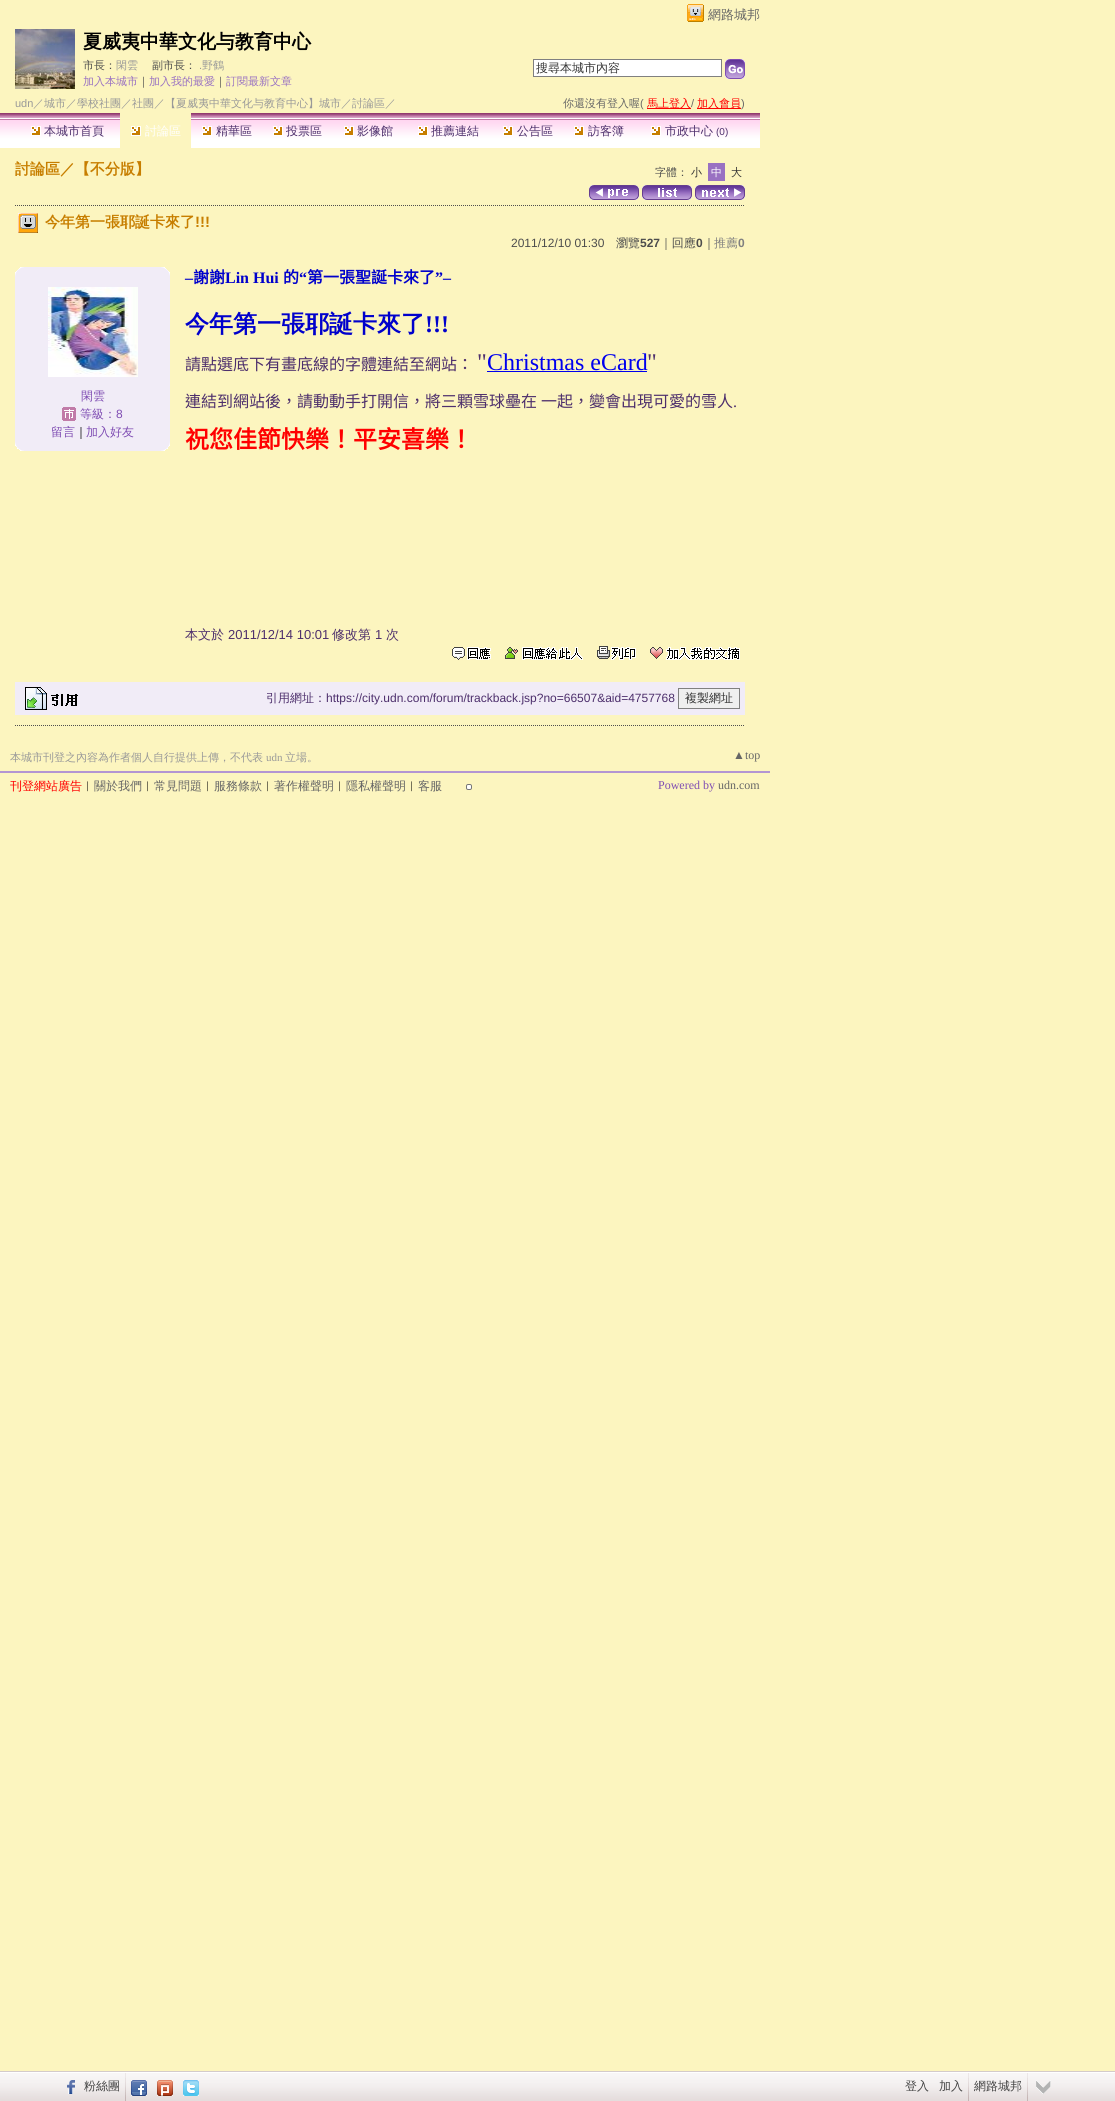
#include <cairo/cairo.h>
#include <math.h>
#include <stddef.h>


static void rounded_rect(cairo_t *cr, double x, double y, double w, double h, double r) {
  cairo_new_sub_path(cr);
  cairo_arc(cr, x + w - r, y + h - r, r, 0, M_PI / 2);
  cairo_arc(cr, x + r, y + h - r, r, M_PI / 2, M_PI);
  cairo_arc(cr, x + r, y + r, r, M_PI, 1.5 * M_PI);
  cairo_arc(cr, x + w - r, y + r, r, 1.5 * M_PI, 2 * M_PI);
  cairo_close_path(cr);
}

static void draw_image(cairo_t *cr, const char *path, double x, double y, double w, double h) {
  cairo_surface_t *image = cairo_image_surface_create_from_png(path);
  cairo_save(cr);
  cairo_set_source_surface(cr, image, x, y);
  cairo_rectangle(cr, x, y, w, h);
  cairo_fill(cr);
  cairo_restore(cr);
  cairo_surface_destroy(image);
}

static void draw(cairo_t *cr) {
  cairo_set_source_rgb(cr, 252 / 255.0, 245 / 255.0, 191 / 255.0);
  cairo_paint(cr);
  draw_image(cr, "images/1.png", 687, 4, 17, 18);
  draw_image(cr, "images/2.png", 15, 29, 60, 60);
  cairo_set_source_rgb(cr, 1, 1, 1);
  cairo_rectangle(cr, 533.5, 59.5, 188, 17);
  cairo_fill_preserve(cr);
  cairo_set_source_rgb(cr, 128 / 255.0, 128 / 255.0, 128 / 255.0);
  cairo_set_line_width(cr, 1);
  cairo_stroke(cr);
  draw_image(cr, "images/3.png", 725, 59, 20, 20);
  cairo_set_source_rgb(cr, 1, 0, 0);
  cairo_rectangle(cr, 647, 108, 44, 1);
  cairo_fill(cr);
  cairo_rectangle(cr, 697, 108, 44, 1);
  cairo_fill(cr);
  draw_image(cr, "images/4.png", 0, 113, 15, 35);
  draw_image(cr, "images/5.png", 15, 113, 105, 35);
  draw_image(cr, "images/6.png", 31, 126, 10, 10);
  draw_image(cr, "images/7.png", 131, 126, 10, 10);
  draw_image(cr, "images/8.png", 191, 113, 71, 35);
  draw_image(cr, "images/6.png", 202, 126, 10, 10);
  draw_image(cr, "images/8.png", 262, 113, 71, 35);
  draw_image(cr, "images/6.png", 273, 126, 10, 10);
  draw_image(cr, "images/8.png", 333, 113, 71, 35);
  draw_image(cr, "images/6.png", 344, 126, 10, 10);
  draw_image(cr, "images/9.png", 404, 113, 88, 35);
  draw_image(cr, "images/6.png", 418, 126, 10, 10);
  draw_image(cr, "images/8.png", 492, 113, 71, 35);
  draw_image(cr, "images/6.png", 503, 126, 10, 10);
  draw_image(cr, "images/8.png", 563, 113, 71, 35);
  draw_image(cr, "images/6.png", 574, 126, 10, 10);
  draw_image(cr, "images/10.png", 634, 113, 111, 35);
  draw_image(cr, "images/6.png", 651, 126, 10, 10);
  draw_image(cr, "images/4.png", 745, 113, 15, 35);
  cairo_set_source_rgb(cr, 153 / 255.0, 113 / 255.0, 194 / 255.0);
  cairo_rectangle(cr, 708, 163, 17, 18);
  cairo_fill(cr);
  draw_image(cr, "images/11.png", 589, 185, 50, 15);
  draw_image(cr, "images/12.png", 642, 185, 50, 15);
  draw_image(cr, "images/13.png", 695, 185, 50, 15);
  draw_image(cr, "images/14.png", 15, 205, 729, 1);
  draw_image(cr, "images/15.png", 18, 213, 20, 20);
  draw_image(cr, "images/16.png", 15, 267, 10, 10);
  cairo_set_source_rgb(cr, 241 / 255.0, 236 / 255.0, 247 / 255.0);
  cairo_rectangle(cr, 25, 267, 135, 10);
  cairo_fill(cr);
  draw_image(cr, "images/17.png", 160, 267, 10, 10);
  cairo_rectangle(cr, 15, 277, 155, 164);
  cairo_fill(cr);
  draw_image(cr, "images/18.png", 48, 287, 90, 90);
  draw_image(cr, "images/19.png", 62, 407, 14, 14);
  draw_image(cr, "images/20.png", 15, 441, 10, 10);
  cairo_rectangle(cr, 25, 441, 135, 10);
  cairo_fill(cr);
  draw_image(cr, "images/21.png", 160, 441, 10, 10);
  cairo_set_source_rgb(cr, 0, 0, 238 / 255.0);
  cairo_rectangle(cr, 487, 371, 160, 1);
  cairo_fill(cr);
  draw_image(cr, "images/22.png", 452, 647, 39, 13);
  draw_image(cr, "images/23.png", 505, 647, 78, 13);
  draw_image(cr, "images/24.png", 597, 646, 39, 14);
  draw_image(cr, "images/25.png", 650, 647, 90, 13);
  cairo_set_source_rgb(cr, 241 / 255.0, 236 / 255.0, 247 / 255.0);
  cairo_rectangle(cr, 15, 682, 730, 33);
  cairo_fill(cr);
  draw_image(cr, "images/26.png", 25, 687, 53, 23);
  cairo_set_source_rgb(cr, 239 / 255.0, 239 / 255.0, 239 / 255.0);
  cairo_rectangle(cr, 678.5, 688.5, 61, 20);
  cairo_fill_preserve(cr);
  cairo_set_source_rgb(cr, 128 / 255.0, 128 / 255.0, 128 / 255.0);
  cairo_stroke(cr);
  draw_image(cr, "images/14.png", 15, 725, 729, 1);
  cairo_set_source_rgb(cr, 179 / 255.0, 149 / 255.0, 210 / 255.0);
  cairo_rectangle(cr, 0, 771, 770, 2);
  cairo_fill(cr);
  cairo_set_source_rgb(cr, 1, 1, 1);
  rounded_rect(cr, 466.5, 784.5, 5, 5, 1.5);
  cairo_fill_preserve(cr);
  cairo_set_source_rgb(cr, 118 / 255.0, 118 / 255.0, 118 / 255.0);
  cairo_stroke(cr);
  draw_image(cr, "images/27.png", 0, 2071, 1115, 30);
  draw_image(cr, "images/28.png", 67, 2080, 8, 14);
  draw_image(cr, "images/29.png", 125, 2073, 1, 28);
  draw_image(cr, "images/30.png", 131, 2080, 16, 16);
  draw_image(cr, "images/31.png", 157, 2080, 16, 16);
  draw_image(cr, "images/32.png", 183, 2080, 16, 16);
  draw_image(cr, "images/29.png", 968, 2073, 1, 28);
  draw_image(cr, "images/29.png", 1027, 2073, 1, 28);
  draw_image(cr, "images/33.png", 1036, 2080, 15, 14);
  cairo_select_font_face(cr, "WenQuanYi Zen Hei Medium", CAIRO_FONT_SLANT_NORMAL, CAIRO_FONT_WEIGHT_NORMAL);
  cairo_set_font_size(cr, 13);
  cairo_set_source_rgb(cr, 102 / 255.0, 102 / 255.0, 102 / 255.0);
  cairo_move_to(cr, 708, 19);
  cairo_show_text(cr, "網路城邦");
  cairo_select_font_face(cr, "WenQuanYi Zen Hei", CAIRO_FONT_SLANT_NORMAL, CAIRO_FONT_WEIGHT_BOLD);
  cairo_set_font_size(cr, 19);
  cairo_set_source_rgb(cr, 0, 0, 0);
  cairo_move_to(cr, 83, 48);
  cairo_show_text(cr, "夏威夷中華文化与教育中心");
  cairo_select_font_face(cr, "WenQuanYi Zen Hei Medium", CAIRO_FONT_SLANT_NORMAL, CAIRO_FONT_WEIGHT_NORMAL);
  cairo_set_font_size(cr, 11);
  cairo_set_source_rgb(cr, 77 / 255.0, 77 / 255.0, 77 / 255.0);
  cairo_move_to(cr, 83, 69);
  cairo_show_text(cr, "市長：");
  cairo_set_source_rgb(cr, 153 / 255.0, 153 / 255.0, 153 / 255.0);
  cairo_move_to(cr, 116, 69);
  cairo_show_text(cr, "閑雲");
  cairo_set_source_rgb(cr, 77 / 255.0, 77 / 255.0, 77 / 255.0);
  cairo_move_to(cr, 152, 69);
  cairo_show_text(cr, "副市長：");
  cairo_select_font_face(cr, "Liberation Sans", CAIRO_FONT_SLANT_NORMAL, CAIRO_FONT_WEIGHT_NORMAL);
  cairo_set_source_rgb(cr, 153 / 255.0, 153 / 255.0, 153 / 255.0);
  cairo_move_to(cr, 199, 69);
  cairo_show_text(cr, ".");
  cairo_select_font_face(cr, "WenQuanYi Zen Hei Medium", CAIRO_FONT_SLANT_NORMAL, CAIRO_FONT_WEIGHT_NORMAL);
  cairo_move_to(cr, 202, 69);
  cairo_show_text(cr, "野鶴");
  cairo_set_source_rgb(cr, 153 / 255.0, 113 / 255.0, 194 / 255.0);
  cairo_move_to(cr, 83, 85);
  cairo_show_text(cr, "加入本城市");
  cairo_set_source_rgb(cr, 77 / 255.0, 77 / 255.0, 77 / 255.0);
  cairo_move_to(cr, 138, 85);
  cairo_show_text(cr, "｜");
  cairo_set_source_rgb(cr, 153 / 255.0, 113 / 255.0, 194 / 255.0);
  cairo_move_to(cr, 149, 85);
  cairo_show_text(cr, "加入我的最愛");
  cairo_set_source_rgb(cr, 77 / 255.0, 77 / 255.0, 77 / 255.0);
  cairo_move_to(cr, 215, 85);
  cairo_show_text(cr, "｜");
  cairo_set_source_rgb(cr, 153 / 255.0, 113 / 255.0, 194 / 255.0);
  cairo_move_to(cr, 226, 85);
  cairo_show_text(cr, "訂閱最新文章");
  cairo_set_font_size(cr, 12);
  cairo_set_source_rgb(cr, 51 / 255.0, 51 / 255.0, 51 / 255.0);
  cairo_move_to(cr, 536, 72);
  cairo_show_text(cr, "搜尋本城市內容");
  cairo_select_font_face(cr, "Liberation Sans", CAIRO_FONT_SLANT_NORMAL, CAIRO_FONT_WEIGHT_NORMAL);
  cairo_set_font_size(cr, 11);
  cairo_set_source_rgb(cr, 153 / 255.0, 153 / 255.0, 153 / 255.0);
  cairo_move_to(cr, 15, 107);
  cairo_show_text(cr, "udn");
  cairo_select_font_face(cr, "WenQuanYi Zen Hei Medium", CAIRO_FONT_SLANT_NORMAL, CAIRO_FONT_WEIGHT_NORMAL);
  cairo_move_to(cr, 33, 107);
  cairo_show_text(cr, "／城市／學校社團／社團／【夏威夷中華文化与教育中心】城市／討論區／");
  cairo_set_source_rgb(cr, 102 / 255.0, 102 / 255.0, 102 / 255.0);
  cairo_move_to(cr, 563, 107);
  cairo_show_text(cr, "你還沒有登入喔");
  cairo_select_font_face(cr, "Liberation Sans", CAIRO_FONT_SLANT_NORMAL, CAIRO_FONT_WEIGHT_NORMAL);
  cairo_move_to(cr, 640, 107);
  cairo_show_text(cr, "(");
  cairo_select_font_face(cr, "WenQuanYi Zen Hei Medium", CAIRO_FONT_SLANT_NORMAL, CAIRO_FONT_WEIGHT_NORMAL);
  cairo_set_source_rgb(cr, 1, 0, 0);
  cairo_move_to(cr, 647, 107);
  cairo_show_text(cr, "馬上登入");
  cairo_select_font_face(cr, "Liberation Sans", CAIRO_FONT_SLANT_NORMAL, CAIRO_FONT_WEIGHT_NORMAL);
  cairo_set_source_rgb(cr, 102 / 255.0, 102 / 255.0, 102 / 255.0);
  cairo_move_to(cr, 691, 107);
  cairo_show_text(cr, "/");
  cairo_select_font_face(cr, "WenQuanYi Zen Hei Medium", CAIRO_FONT_SLANT_NORMAL, CAIRO_FONT_WEIGHT_NORMAL);
  cairo_set_source_rgb(cr, 1, 0, 0);
  cairo_move_to(cr, 697, 107);
  cairo_show_text(cr, "加入會員");
  cairo_select_font_face(cr, "Liberation Sans", CAIRO_FONT_SLANT_NORMAL, CAIRO_FONT_WEIGHT_NORMAL);
  cairo_set_source_rgb(cr, 102 / 255.0, 102 / 255.0, 102 / 255.0);
  cairo_move_to(cr, 741, 107);
  cairo_show_text(cr, ")");
  cairo_select_font_face(cr, "WenQuanYi Zen Hei Medium", CAIRO_FONT_SLANT_NORMAL, CAIRO_FONT_WEIGHT_NORMAL);
  cairo_set_font_size(cr, 12);
  cairo_set_source_rgb(cr, 77 / 255.0, 47 / 255.0, 108 / 255.0);
  cairo_move_to(cr, 44, 135);
  cairo_show_text(cr, "本城市首頁");
  cairo_set_source_rgb(cr, 1, 1, 1);
  cairo_move_to(cr, 145, 135);
  cairo_show_text(cr, "討論區");
  cairo_set_source_rgb(cr, 77 / 255.0, 47 / 255.0, 108 / 255.0);
  cairo_move_to(cr, 216, 135);
  cairo_show_text(cr, "精華區");
  cairo_move_to(cr, 286, 135);
  cairo_show_text(cr, "投票區");
  cairo_move_to(cr, 357, 135);
  cairo_show_text(cr, "影像館");
  cairo_move_to(cr, 431, 135);
  cairo_show_text(cr, "推薦連結");
  cairo_move_to(cr, 517, 135);
  cairo_show_text(cr, "公告區");
  cairo_move_to(cr, 588, 135);
  cairo_show_text(cr, "訪客簿");
  cairo_move_to(cr, 665, 135);
  cairo_show_text(cr, "市政中心");
  cairo_select_font_face(cr, "Liberation Sans", CAIRO_FONT_SLANT_NORMAL, CAIRO_FONT_WEIGHT_NORMAL);
  cairo_set_font_size(cr, 10);
  cairo_move_to(cr, 716, 135);
  cairo_show_text(cr, "(0)");
  cairo_select_font_face(cr, "WenQuanYi Zen Hei", CAIRO_FONT_SLANT_NORMAL, CAIRO_FONT_WEIGHT_BOLD);
  cairo_set_font_size(cr, 15);
  cairo_set_source_rgb(cr, 199 / 255.0, 126 / 255.0, 0);
  cairo_move_to(cr, 15, 174);
  cairo_show_text(cr, "討論區／【不分版】");
  cairo_select_font_face(cr, "WenQuanYi Zen Hei Medium", CAIRO_FONT_SLANT_NORMAL, CAIRO_FONT_WEIGHT_NORMAL);
  cairo_set_font_size(cr, 11);
  cairo_set_source_rgb(cr, 77 / 255.0, 77 / 255.0, 77 / 255.0);
  cairo_move_to(cr, 655, 176);
  cairo_show_text(cr, "字體：");
  cairo_set_source_rgb(cr, 51 / 255.0, 51 / 255.0, 51 / 255.0);
  cairo_move_to(cr, 691, 176);
  cairo_show_text(cr, "小");
  cairo_set_source_rgb(cr, 1, 1, 1);
  cairo_move_to(cr, 711, 176);
  cairo_show_text(cr, "中");
  cairo_set_source_rgb(cr, 51 / 255.0, 51 / 255.0, 51 / 255.0);
  cairo_move_to(cr, 731, 176);
  cairo_show_text(cr, "大");
  cairo_select_font_face(cr, "WenQuanYi Zen Hei", CAIRO_FONT_SLANT_NORMAL, CAIRO_FONT_WEIGHT_BOLD);
  cairo_set_font_size(cr, 15);
  cairo_set_source_rgb(cr, 199 / 255.0, 126 / 255.0, 0);
  cairo_move_to(cr, 45, 227);
  cairo_show_text(cr, "今年第一張耶誕卡來了");
  cairo_select_font_face(cr, "Liberation Sans", CAIRO_FONT_SLANT_NORMAL, CAIRO_FONT_WEIGHT_BOLD);
  cairo_move_to(cr, 195, 227);
  cairo_show_text(cr, "!!!");
  cairo_select_font_face(cr, "Liberation Sans", CAIRO_FONT_SLANT_NORMAL, CAIRO_FONT_WEIGHT_NORMAL);
  cairo_set_font_size(cr, 12);
  cairo_set_source_rgb(cr, 77 / 255.0, 77 / 255.0, 77 / 255.0);
  cairo_move_to(cr, 511, 247);
  cairo_show_text(cr, "2011/12/10 01:30");
  cairo_select_font_face(cr, "WenQuanYi Zen Hei Medium", CAIRO_FONT_SLANT_NORMAL, CAIRO_FONT_WEIGHT_NORMAL);
  cairo_move_to(cr, 616, 247);
  cairo_show_text(cr, "瀏覽");
  cairo_select_font_face(cr, "Liberation Sans", CAIRO_FONT_SLANT_NORMAL, CAIRO_FONT_WEIGHT_BOLD);
  cairo_move_to(cr, 640, 247);
  cairo_show_text(cr, "527");
  cairo_select_font_face(cr, "WenQuanYi Zen Hei Medium", CAIRO_FONT_SLANT_NORMAL, CAIRO_FONT_WEIGHT_NORMAL);
  cairo_move_to(cr, 660, 247);
  cairo_show_text(cr, "｜回應");
  cairo_select_font_face(cr, "Liberation Sans", CAIRO_FONT_SLANT_NORMAL, CAIRO_FONT_WEIGHT_BOLD);
  cairo_move_to(cr, 696, 247);
  cairo_show_text(cr, "0");
  cairo_select_font_face(cr, "WenQuanYi Zen Hei Medium", CAIRO_FONT_SLANT_NORMAL, CAIRO_FONT_WEIGHT_NORMAL);
  cairo_move_to(cr, 703, 247);
  cairo_show_text(cr, "｜");
  cairo_set_source_rgb(cr, 128 / 255.0, 128 / 255.0, 128 / 255.0);
  cairo_move_to(cr, 714, 247);
  cairo_show_text(cr, "推薦");
  cairo_select_font_face(cr, "Liberation Sans", CAIRO_FONT_SLANT_NORMAL, CAIRO_FONT_WEIGHT_BOLD);
  cairo_move_to(cr, 738, 247);
  cairo_show_text(cr, "0");
  cairo_select_font_face(cr, "WenQuanYi Zen Hei Medium", CAIRO_FONT_SLANT_NORMAL, CAIRO_FONT_WEIGHT_NORMAL);
  cairo_set_source_rgb(cr, 127 / 255.0, 77 / 255.0, 179 / 255.0);
  cairo_move_to(cr, 81, 400);
  cairo_show_text(cr, "閑雲");
  cairo_move_to(cr, 80, 418);
  cairo_show_text(cr, "等級：");
  cairo_select_font_face(cr, "Liberation Sans", CAIRO_FONT_SLANT_NORMAL, CAIRO_FONT_WEIGHT_NORMAL);
  cairo_move_to(cr, 116, 418);
  cairo_show_text(cr, "8");
  cairo_select_font_face(cr, "WenQuanYi Zen Hei Medium", CAIRO_FONT_SLANT_NORMAL, CAIRO_FONT_WEIGHT_NORMAL);
  cairo_move_to(cr, 51, 436);
  cairo_show_text(cr, "留言");
  cairo_set_source_rgb(cr, 0, 0, 0);
  cairo_move_to(cr, 75, 436);
  cairo_show_text(cr, "｜");
  cairo_set_source_rgb(cr, 127 / 255.0, 77 / 255.0, 179 / 255.0);
  cairo_move_to(cr, 86, 436);
  cairo_show_text(cr, "加入好友");
  cairo_select_font_face(cr, "Liberation Serif", CAIRO_FONT_SLANT_NORMAL, CAIRO_FONT_WEIGHT_BOLD);
  cairo_set_font_size(cr, 16);
  cairo_set_source_rgb(cr, 0, 0, 204 / 255.0);
  cairo_move_to(cr, 185, 283);
  cairo_show_text(cr, "–");
  cairo_select_font_face(cr, "Noto Sans CJK TC", CAIRO_FONT_SLANT_NORMAL, CAIRO_FONT_WEIGHT_BOLD);
  cairo_move_to(cr, 193, 283);
  cairo_show_text(cr, "謝謝");
  cairo_select_font_face(cr, "Liberation Serif", CAIRO_FONT_SLANT_NORMAL, CAIRO_FONT_WEIGHT_BOLD);
  cairo_move_to(cr, 225, 283);
  cairo_show_text(cr, "Lin Hui");
  cairo_select_font_face(cr, "Noto Sans CJK TC", CAIRO_FONT_SLANT_NORMAL, CAIRO_FONT_WEIGHT_BOLD);
  cairo_move_to(cr, 283, 283);
  cairo_show_text(cr, "的");
  cairo_select_font_face(cr, "Liberation Serif", CAIRO_FONT_SLANT_NORMAL, CAIRO_FONT_WEIGHT_BOLD);
  cairo_move_to(cr, 299, 283);
  cairo_show_text(cr, "“");
  cairo_select_font_face(cr, "Noto Sans CJK TC", CAIRO_FONT_SLANT_NORMAL, CAIRO_FONT_WEIGHT_BOLD);
  cairo_move_to(cr, 307, 283);
  cairo_show_text(cr, "第一張聖誕卡來了");
  cairo_select_font_face(cr, "Liberation Serif", CAIRO_FONT_SLANT_NORMAL, CAIRO_FONT_WEIGHT_BOLD);
  cairo_move_to(cr, 435, 283);
  cairo_show_text(cr, "”–");
  cairo_select_font_face(cr, "WenQuanYi Zen Hei", CAIRO_FONT_SLANT_NORMAL, CAIRO_FONT_WEIGHT_BOLD);
  cairo_set_font_size(cr, 24);
  cairo_move_to(cr, 185, 332);
  cairo_show_text(cr, "今年第一張耶誕卡來了");
  cairo_select_font_face(cr, "Liberation Serif", CAIRO_FONT_SLANT_NORMAL, CAIRO_FONT_WEIGHT_BOLD);
  cairo_move_to(cr, 425, 332);
  cairo_show_text(cr, "!!!");
  cairo_select_font_face(cr, "Noto Sans CJK TC", CAIRO_FONT_SLANT_NORMAL, CAIRO_FONT_WEIGHT_NORMAL);
  cairo_set_font_size(cr, 16);
  cairo_set_source_rgb(cr, 77 / 255.0, 47 / 255.0, 108 / 255.0);
  cairo_move_to(cr, 185, 370);
  cairo_show_text(cr, "請點選底下有畫底線的字體連結至網站：");
  cairo_select_font_face(cr, "Liberation Serif", CAIRO_FONT_SLANT_NORMAL, CAIRO_FONT_WEIGHT_NORMAL);
  cairo_set_font_size(cr, 24);
  cairo_move_to(cr, 477, 370);
  cairo_show_text(cr, "\"");
  cairo_set_source_rgb(cr, 0, 0, 238 / 255.0);
  cairo_move_to(cr, 487, 370);
  cairo_show_text(cr, "Christmas eCard");
  cairo_set_source_rgb(cr, 77 / 255.0, 47 / 255.0, 108 / 255.0);
  cairo_move_to(cr, 647, 370);
  cairo_show_text(cr, "\"");
  cairo_select_font_face(cr, "Noto Sans CJK TC", CAIRO_FONT_SLANT_NORMAL, CAIRO_FONT_WEIGHT_NORMAL);
  cairo_set_font_size(cr, 16);
  cairo_move_to(cr, 185, 407);
  cairo_show_text(cr, "連結到網站後，請動動手打開信，將三顆雪球壘在");
  cairo_move_to(cr, 541, 407);
  cairo_show_text(cr, "一起，變會出現可愛的雪人");
  cairo_select_font_face(cr, "Liberation Serif", CAIRO_FONT_SLANT_NORMAL, CAIRO_FONT_WEIGHT_NORMAL);
  cairo_move_to(cr, 733, 407);
  cairo_show_text(cr, ".");
  cairo_select_font_face(cr, "Noto Sans CJK TC", CAIRO_FONT_SLANT_NORMAL, CAIRO_FONT_WEIGHT_BOLD);
  cairo_set_font_size(cr, 24);
  cairo_set_source_rgb(cr, 1, 0, 0);
  cairo_move_to(cr, 185, 448);
  cairo_show_text(cr, "祝您佳節快樂！平安喜樂！");
  cairo_select_font_face(cr, "WenQuanYi Zen Hei Medium", CAIRO_FONT_SLANT_NORMAL, CAIRO_FONT_WEIGHT_NORMAL);
  cairo_set_font_size(cr, 13);
  cairo_set_source_rgb(cr, 77 / 255.0, 47 / 255.0, 108 / 255.0);
  cairo_move_to(cr, 185, 639);
  cairo_show_text(cr, "本文於");
  cairo_select_font_face(cr, "Liberation Sans", CAIRO_FONT_SLANT_NORMAL, CAIRO_FONT_WEIGHT_NORMAL);
  cairo_move_to(cr, 228, 639);
  cairo_show_text(cr, "2011/12/14 10:01");
  cairo_select_font_face(cr, "WenQuanYi Zen Hei Medium", CAIRO_FONT_SLANT_NORMAL, CAIRO_FONT_WEIGHT_NORMAL);
  cairo_move_to(cr, 332, 639);
  cairo_show_text(cr, "修改第");
  cairo_select_font_face(cr, "Liberation Sans", CAIRO_FONT_SLANT_NORMAL, CAIRO_FONT_WEIGHT_NORMAL);
  cairo_move_to(cr, 375, 639);
  cairo_show_text(cr, "1");
  cairo_select_font_face(cr, "WenQuanYi Zen Hei Medium", CAIRO_FONT_SLANT_NORMAL, CAIRO_FONT_WEIGHT_NORMAL);
  cairo_move_to(cr, 386, 639);
  cairo_show_text(cr, "次");
  cairo_set_font_size(cr, 12);
  cairo_move_to(cr, 266, 702);
  cairo_show_text(cr, "引用網址：");
  cairo_select_font_face(cr, "Liberation Sans", CAIRO_FONT_SLANT_NORMAL, CAIRO_FONT_WEIGHT_NORMAL);
  cairo_move_to(cr, 326, 702);
  cairo_show_text(cr, "https://city.udn.com/forum/trackback.jsp?no=66507&aid=4757768");
  cairo_select_font_face(cr, "WenQuanYi Zen Hei Medium", CAIRO_FONT_SLANT_NORMAL, CAIRO_FONT_WEIGHT_NORMAL);
  cairo_set_source_rgb(cr, 51 / 255.0, 51 / 255.0, 51 / 255.0);
  cairo_move_to(cr, 685, 702);
  cairo_show_text(cr, "複製網址");
  cairo_set_font_size(cr, 11);
  cairo_set_source_rgb(cr, 153 / 255.0, 153 / 255.0, 153 / 255.0);
  cairo_move_to(cr, 10, 761);
  cairo_show_text(cr, "本城市刊登之內容為作者個人自行提供上傳，不代表");
  cairo_select_font_face(cr, "Liberation Serif", CAIRO_FONT_SLANT_NORMAL, CAIRO_FONT_WEIGHT_NORMAL);
  cairo_move_to(cr, 266, 761);
  cairo_show_text(cr, "udn");
  cairo_select_font_face(cr, "WenQuanYi Zen Hei Medium", CAIRO_FONT_SLANT_NORMAL, CAIRO_FONT_WEIGHT_NORMAL);
  cairo_move_to(cr, 285, 761);
  cairo_show_text(cr, "立場。");
  cairo_select_font_face(cr, "Liberation Serif", CAIRO_FONT_SLANT_NORMAL, CAIRO_FONT_WEIGHT_NORMAL);
  cairo_set_font_size(cr, 12);
  cairo_set_source_rgb(cr, 102 / 255.0, 102 / 255.0, 102 / 255.0);
  cairo_move_to(cr, 733, 759);
  cairo_show_text(cr, "▲top");
  cairo_select_font_face(cr, "WenQuanYi Zen Hei Medium", CAIRO_FONT_SLANT_NORMAL, CAIRO_FONT_WEIGHT_NORMAL);
  cairo_set_source_rgb(cr, 1, 0, 0);
  cairo_move_to(cr, 10, 790);
  cairo_show_text(cr, "刊登網站廣告");
  cairo_set_source_rgb(cr, 0, 0, 0);
  cairo_move_to(cr, 82, 790);
  cairo_show_text(cr, "︱");
  cairo_set_source_rgb(cr, 102 / 255.0, 102 / 255.0, 102 / 255.0);
  cairo_move_to(cr, 94, 790);
  cairo_show_text(cr, "關於我們");
  cairo_set_source_rgb(cr, 0, 0, 0);
  cairo_move_to(cr, 142, 790);
  cairo_show_text(cr, "︱");
  cairo_set_source_rgb(cr, 102 / 255.0, 102 / 255.0, 102 / 255.0);
  cairo_move_to(cr, 154, 790);
  cairo_show_text(cr, "常見問題");
  cairo_set_source_rgb(cr, 0, 0, 0);
  cairo_move_to(cr, 202, 790);
  cairo_show_text(cr, "︱");
  cairo_set_source_rgb(cr, 102 / 255.0, 102 / 255.0, 102 / 255.0);
  cairo_move_to(cr, 214, 790);
  cairo_show_text(cr, "服務條款");
  cairo_set_source_rgb(cr, 0, 0, 0);
  cairo_move_to(cr, 262, 790);
  cairo_show_text(cr, "︱");
  cairo_set_source_rgb(cr, 102 / 255.0, 102 / 255.0, 102 / 255.0);
  cairo_move_to(cr, 274, 790);
  cairo_show_text(cr, "著作權聲明");
  cairo_set_source_rgb(cr, 0, 0, 0);
  cairo_move_to(cr, 334, 790);
  cairo_show_text(cr, "︱");
  cairo_set_source_rgb(cr, 102 / 255.0, 102 / 255.0, 102 / 255.0);
  cairo_move_to(cr, 346, 790);
  cairo_show_text(cr, "隱私權聲明");
  cairo_set_source_rgb(cr, 0, 0, 0);
  cairo_move_to(cr, 406, 790);
  cairo_show_text(cr, "︱");
  cairo_set_source_rgb(cr, 102 / 255.0, 102 / 255.0, 102 / 255.0);
  cairo_move_to(cr, 418, 790);
  cairo_show_text(cr, "客服");
  cairo_select_font_face(cr, "Liberation Serif", CAIRO_FONT_SLANT_NORMAL, CAIRO_FONT_WEIGHT_NORMAL);
  cairo_set_source_rgb(cr, 127 / 255.0, 77 / 255.0, 179 / 255.0);
  cairo_move_to(cr, 658, 789);
  cairo_show_text(cr, "Powered by");
  cairo_set_source_rgb(cr, 102 / 255.0, 102 / 255.0, 102 / 255.0);
  cairo_move_to(cr, 718, 789);
  cairo_show_text(cr, "udn.com");
  cairo_select_font_face(cr, "WenQuanYi Zen Hei Medium", CAIRO_FONT_SLANT_NORMAL, CAIRO_FONT_WEIGHT_NORMAL);
  cairo_set_source_rgb(cr, 68 / 255.0, 68 / 255.0, 68 / 255.0);
  cairo_move_to(cr, 84, 2090);
  cairo_show_text(cr, "粉絲團");
  cairo_move_to(cr, 905, 2090);
  cairo_show_text(cr, "登入");
  cairo_move_to(cr, 939, 2090);
  cairo_show_text(cr, "加入");
  cairo_move_to(cr, 974, 2090);
  cairo_show_text(cr, "網路城邦");
}

int main(void) {
  cairo_surface_t *surface = cairo_image_surface_create(CAIRO_FORMAT_RGB24, 1115, 2101);
  cairo_t *cr = cairo_create(surface);
  cairo_font_options_t *options = cairo_font_options_create();
  cairo_font_options_set_hint_metrics(options, CAIRO_HINT_METRICS_OFF);
  cairo_font_options_set_hint_style(options, CAIRO_HINT_STYLE_NONE);
  cairo_set_font_options(cr, options);
  cairo_set_miter_limit(cr, 4);
  draw(cr);
  cairo_surface_write_to_png(surface, "out.png");
  cairo_font_options_destroy(options);
  cairo_destroy(cr);
  cairo_surface_destroy(surface);
  return 0;
}
